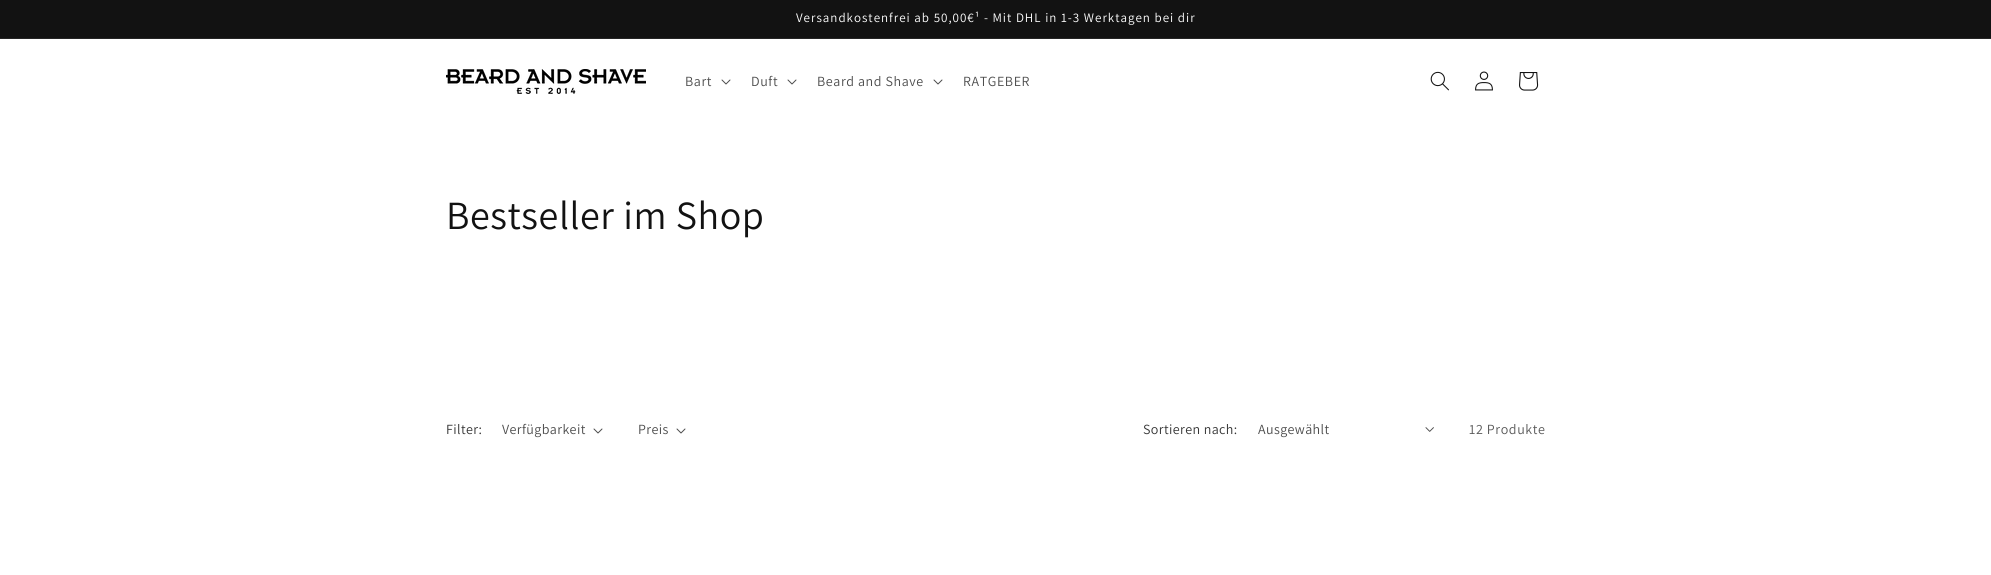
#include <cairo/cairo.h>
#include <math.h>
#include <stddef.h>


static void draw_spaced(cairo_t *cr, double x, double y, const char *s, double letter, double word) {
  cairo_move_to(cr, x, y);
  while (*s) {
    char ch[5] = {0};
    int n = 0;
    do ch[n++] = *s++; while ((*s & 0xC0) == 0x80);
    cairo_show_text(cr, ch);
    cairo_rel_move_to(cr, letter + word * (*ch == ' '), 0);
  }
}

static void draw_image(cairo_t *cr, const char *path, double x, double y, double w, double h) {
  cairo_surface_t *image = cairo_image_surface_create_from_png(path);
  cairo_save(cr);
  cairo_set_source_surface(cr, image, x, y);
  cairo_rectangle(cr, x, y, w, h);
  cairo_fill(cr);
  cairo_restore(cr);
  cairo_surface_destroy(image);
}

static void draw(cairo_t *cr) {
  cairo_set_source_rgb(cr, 1, 1, 1);
  cairo_paint(cr);
  cairo_set_source_rgb(cr, 18 / 255.0, 18 / 255.0, 18 / 255.0);
  cairo_rectangle(cr, 0, 0, 1991, 38);
  cairo_fill(cr);
  cairo_set_source_rgb(cr, 37 / 255.0, 37 / 255.0, 37 / 255.0);
  cairo_rectangle(cr, 0, 38, 1991, 1);
  cairo_fill(cr);
  draw_image(cr, "images/1.png", 446, 69, 200, 25);
  draw_image(cr, "images/2.png", 721, 79, 10, 6);
  draw_image(cr, "images/2.png", 787, 79, 10, 6);
  draw_image(cr, "images/2.png", 933, 79, 10, 6);
  draw_image(cr, "images/3.png", 1430, 71, 19, 20);
  draw_image(cr, "images/4.png", 1475, 71, 18, 20);
  draw_image(cr, "images/5.png", 1519, 72, 20, 19);
  draw_image(cr, "images/2.png", 593, 428, 10, 6);
  draw_image(cr, "images/2.png", 676, 428, 10, 6);
  draw_image(cr, "images/6.png", 1425, 427, 9, 5);
  cairo_select_font_face(cr, "Assistant", CAIRO_FONT_SLANT_NORMAL, CAIRO_FONT_WEIGHT_NORMAL);
  cairo_set_font_size(cr, 13);
  cairo_set_source_rgb(cr, 1, 1, 1);
  draw_spaced(cr, 796, 22, "Versandkostenfrei ab 50,00€¹ - Mit DHL in 1-3 Werktagen bei dir", 1, 0);
  cairo_set_font_size(cr, 14);
  cairo_set_source_rgb(cr, 77 / 255.0, 77 / 255.0, 77 / 255.0);
  draw_spaced(cr, 685, 86, "Bart", 0.6, 0);
  draw_spaced(cr, 751, 86, "Duft", 0.6, 0);
  draw_spaced(cr, 817, 86, "Beard and Shave", 0.6, 0);
  draw_spaced(cr, 963, 86, "RATGEBER", 0.6, 0);
  cairo_set_font_size(cr, 40);
  cairo_set_source_rgb(cr, 18 / 255.0, 18 / 255.0, 18 / 255.0);
  draw_spaced(cr, 446, 229, "Bestseller im Shop", 0.6, 0);
  cairo_set_font_size(cr, 14);
  cairo_set_source_rgb(cr, 54 / 255.0, 54 / 255.0, 54 / 255.0);
  draw_spaced(cr, 446, 434, "Filter:", 0.4, 0);
  cairo_set_source_rgb(cr, 77 / 255.0, 77 / 255.0, 77 / 255.0);
  draw_spaced(cr, 502, 434, "Verfügbarkeit", 0.4, 0);
  draw_spaced(cr, 638, 434, "Preis", 0.4, 0);
  cairo_set_source_rgb(cr, 54 / 255.0, 54 / 255.0, 54 / 255.0);
  draw_spaced(cr, 1143, 434, "Sortieren nach:", 0.4, 0);
  cairo_set_source_rgb(cr, 77 / 255.0, 77 / 255.0, 77 / 255.0);
  draw_spaced(cr, 1258, 434, "Ausgewählt", 0.4, 0);
  cairo_set_source_rgb(cr, 89 / 255.0, 89 / 255.0, 89 / 255.0);
  draw_spaced(cr, 1469, 434, "12 Produkte", 0.6, 0);
}

int main(void) {
  cairo_surface_t *surface = cairo_image_surface_create(CAIRO_FORMAT_RGB24, 1991, 575);
  cairo_t *cr = cairo_create(surface);
  cairo_font_options_t *options = cairo_font_options_create();
  cairo_font_options_set_hint_metrics(options, CAIRO_HINT_METRICS_OFF);
  cairo_font_options_set_hint_style(options, CAIRO_HINT_STYLE_NONE);
  cairo_set_font_options(cr, options);
  cairo_set_miter_limit(cr, 4);
  draw(cr);
  cairo_surface_write_to_png(surface, "out.png");
  cairo_font_options_destroy(options);
  cairo_destroy(cr);
  cairo_surface_destroy(surface);
  return 0;
}
